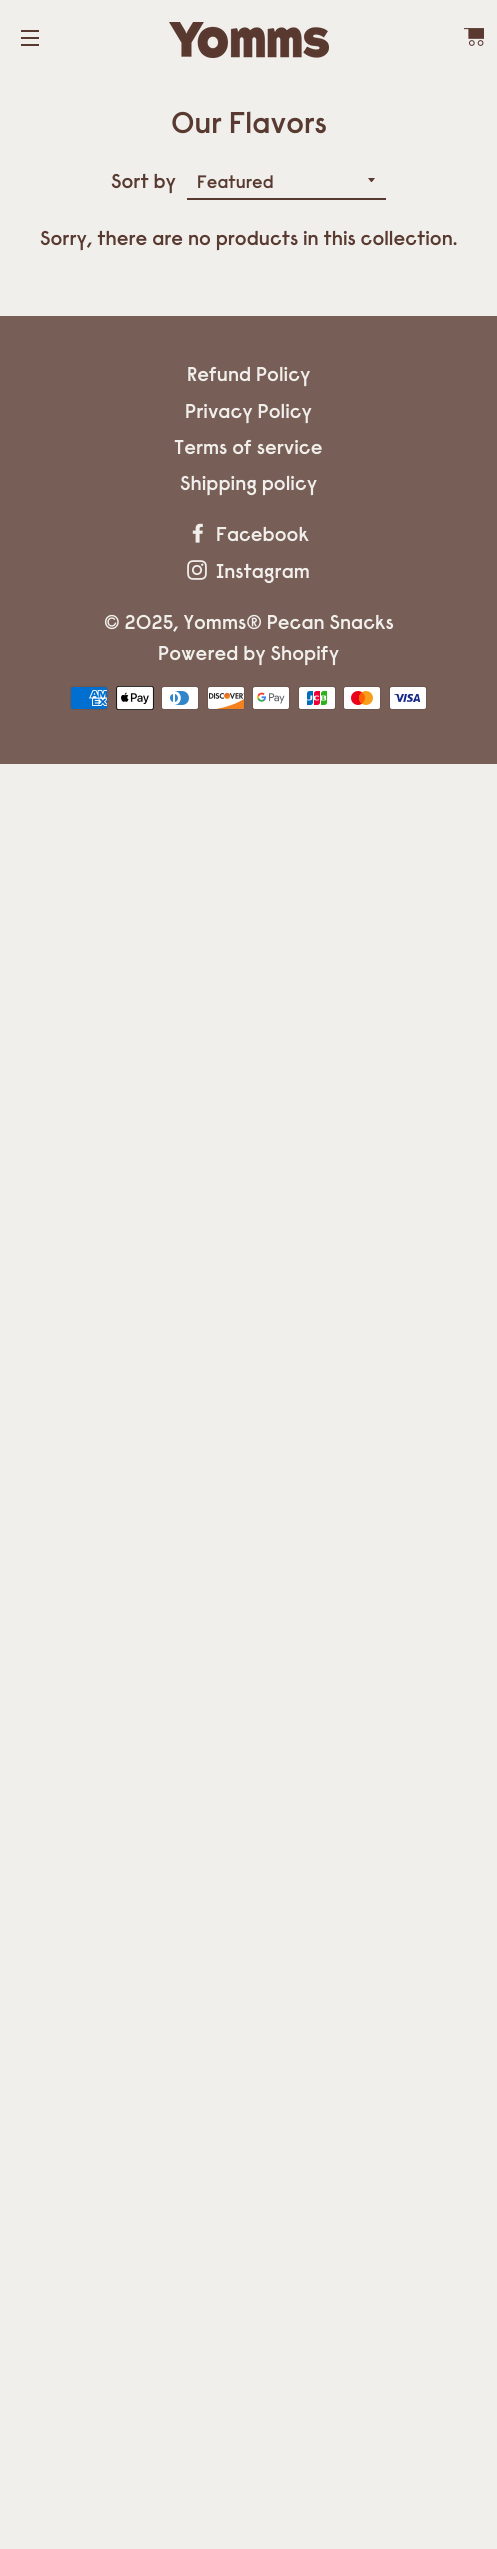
#include <cairo/cairo.h>
#include <math.h>
#include <stddef.h>


static void draw_image(cairo_t *cr, const char *path, double x, double y, double w, double h) {
  cairo_surface_t *image = cairo_image_surface_create_from_png(path);
  cairo_save(cr);
  cairo_set_source_surface(cr, image, x, y);
  cairo_rectangle(cr, x, y, w, h);
  cairo_fill(cr);
  cairo_restore(cr);
  cairo_surface_destroy(image);
}

static void draw(cairo_t *cr) {
  cairo_set_source_rgb(cr, 241 / 255.0, 239 / 255.0, 236 / 255.0);
  cairo_paint(cr);
  cairo_set_source_rgb(cr, 89 / 255.0, 57 / 255.0, 47 / 255.0);
  cairo_rectangle(cr, 21, 30, 18, 2);
  cairo_fill(cr);
  cairo_rectangle(cr, 21, 37, 18, 2);
  cairo_fill(cr);
  cairo_rectangle(cr, 21, 44, 18, 2);
  cairo_fill(cr);
  draw_image(cr, "images/1.png", 169, 22, 160, 36);
  draw_image(cr, "images/2.png", 464, 28, 20, 18);
  cairo_set_source_rgb(cr, 89 / 255.0, 58 / 255.0, 48 / 255.0);
  cairo_new_path(cr);
  cairo_move_to(cr, 368, 178);
  cairo_curve_to(cr, 372.5, 183.5, 370.5, 183.5, 375, 178);
  cairo_close_path(cr);
  cairo_fill(cr);
  cairo_rectangle(cr, 187, 198, 199, 2);
  cairo_fill(cr);
  cairo_set_source_rgb(cr, 119 / 255.0, 94 / 255.0, 86 / 255.0);
  cairo_rectangle(cr, 0, 316, 497, 448);
  cairo_fill(cr);
  draw_image(cr, "images/3.png", 192, 523, 11, 20);
  draw_image(cr, "images/4.png", 187, 560, 20, 20);
  draw_image(cr, "images/5.png", 70, 686, 38, 24);
  draw_image(cr, "images/6.png", 116, 686, 38, 24);
  draw_image(cr, "images/7.png", 161, 686, 38, 24);
  draw_image(cr, "images/8.png", 207, 686, 38, 24);
  draw_image(cr, "images/9.png", 252, 686, 38, 24);
  draw_image(cr, "images/10.png", 298, 686, 38, 24);
  draw_image(cr, "images/11.png", 343, 686, 38, 24);
  draw_image(cr, "images/12.png", 389, 686, 38, 24);
  cairo_select_font_face(cr, "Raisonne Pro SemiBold", CAIRO_FONT_SLANT_NORMAL, CAIRO_FONT_WEIGHT_NORMAL);
  cairo_set_font_size(cr, 30);
  cairo_set_source_rgb(cr, 89 / 255.0, 58 / 255.0, 48 / 255.0);
  cairo_move_to(cr, 171, 133);
  cairo_show_text(cr, "Our Flavors");
  cairo_set_font_size(cr, 20);
  cairo_move_to(cr, 111, 188);
  cairo_show_text(cr, "Sort by");
  cairo_set_font_size(cr, 18);
  cairo_move_to(cr, 197, 188);
  cairo_show_text(cr, "Featured");
  cairo_set_font_size(cr, 20);
  cairo_move_to(cr, 40, 245);
  cairo_show_text(cr, "Sorry, there are no products in this collection.");
  cairo_set_source_rgb(cr, 241 / 255.0, 239 / 255.0, 236 / 255.0);
  cairo_move_to(cr, 187, 381);
  cairo_show_text(cr, "Refund Policy");
  cairo_move_to(cr, 185, 418);
  cairo_show_text(cr, "Privacy Policy");
  cairo_move_to(cr, 174, 454);
  cairo_show_text(cr, "Terms of service");
  cairo_move_to(cr, 180, 490);
  cairo_show_text(cr, "Shipping policy");
  cairo_move_to(cr, 216, 541);
  cairo_show_text(cr, "Facebook");
  cairo_move_to(cr, 216, 578);
  cairo_show_text(cr, "Instagram");
  cairo_move_to(cr, 104, 629);
  cairo_show_text(cr, "© 2025, Yomms® Pecan Snacks");
  cairo_move_to(cr, 158, 660);
  cairo_show_text(cr, "Powered by Shopify");
}

int main(void) {
  cairo_surface_t *surface = cairo_image_surface_create(CAIRO_FORMAT_RGB24, 497, 2549);
  cairo_t *cr = cairo_create(surface);
  cairo_font_options_t *options = cairo_font_options_create();
  cairo_font_options_set_hint_metrics(options, CAIRO_HINT_METRICS_OFF);
  cairo_font_options_set_hint_style(options, CAIRO_HINT_STYLE_NONE);
  cairo_set_font_options(cr, options);
  cairo_set_miter_limit(cr, 4);
  draw(cr);
  cairo_surface_write_to_png(surface, "out.png");
  cairo_font_options_destroy(options);
  cairo_destroy(cr);
  cairo_surface_destroy(surface);
  return 0;
}
